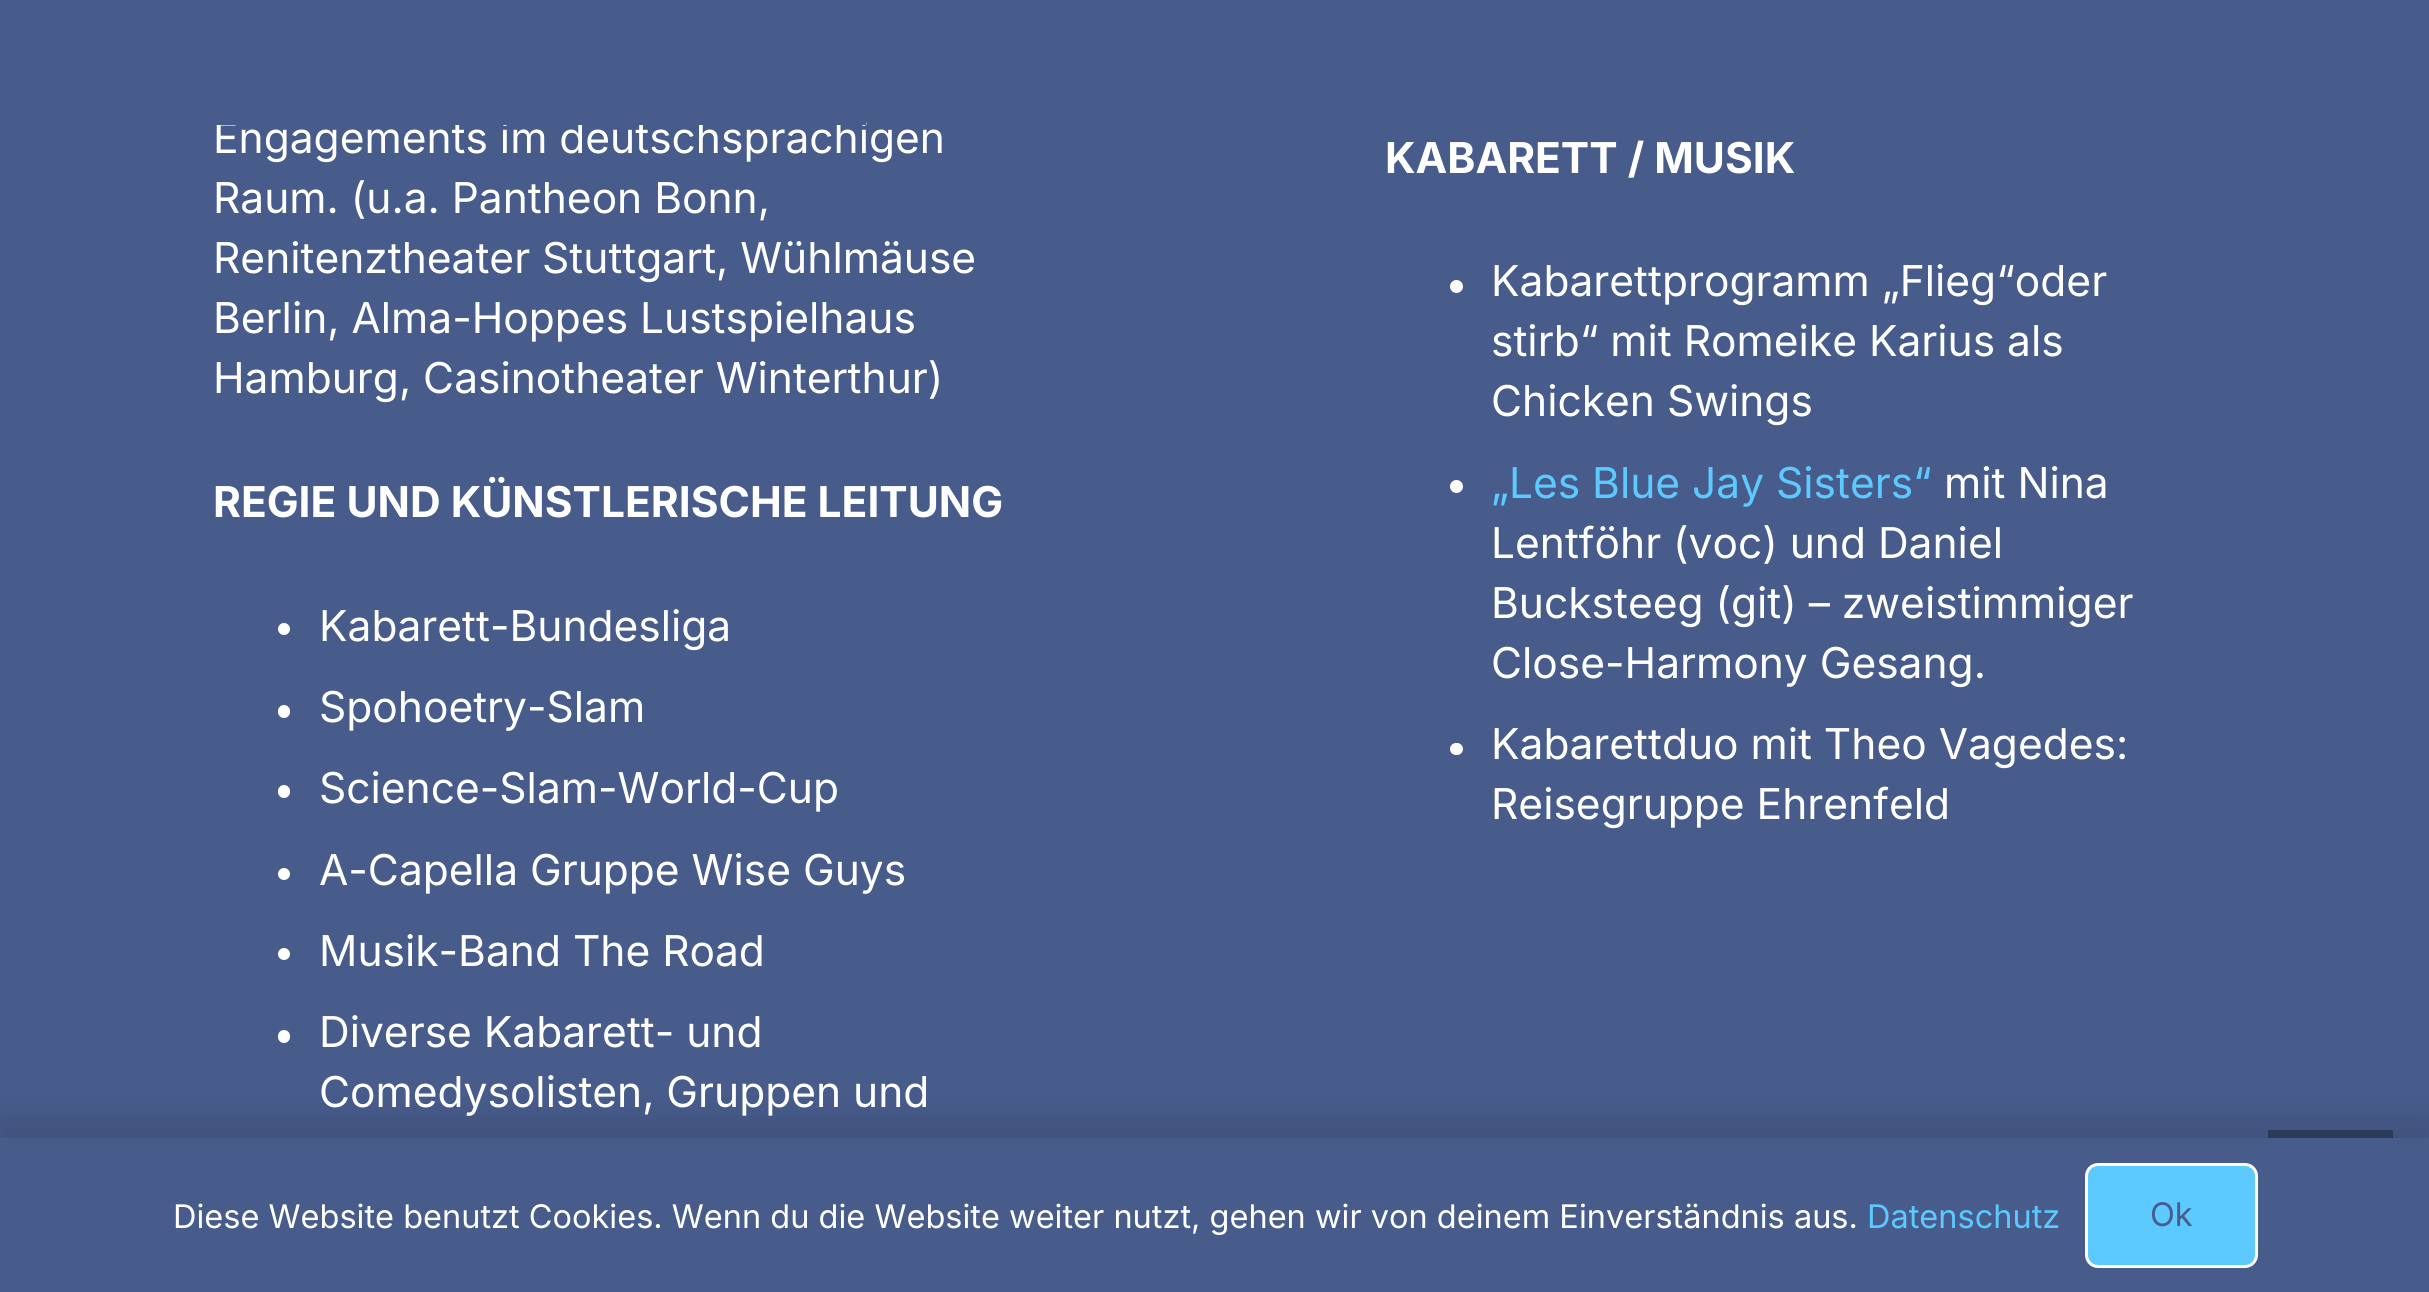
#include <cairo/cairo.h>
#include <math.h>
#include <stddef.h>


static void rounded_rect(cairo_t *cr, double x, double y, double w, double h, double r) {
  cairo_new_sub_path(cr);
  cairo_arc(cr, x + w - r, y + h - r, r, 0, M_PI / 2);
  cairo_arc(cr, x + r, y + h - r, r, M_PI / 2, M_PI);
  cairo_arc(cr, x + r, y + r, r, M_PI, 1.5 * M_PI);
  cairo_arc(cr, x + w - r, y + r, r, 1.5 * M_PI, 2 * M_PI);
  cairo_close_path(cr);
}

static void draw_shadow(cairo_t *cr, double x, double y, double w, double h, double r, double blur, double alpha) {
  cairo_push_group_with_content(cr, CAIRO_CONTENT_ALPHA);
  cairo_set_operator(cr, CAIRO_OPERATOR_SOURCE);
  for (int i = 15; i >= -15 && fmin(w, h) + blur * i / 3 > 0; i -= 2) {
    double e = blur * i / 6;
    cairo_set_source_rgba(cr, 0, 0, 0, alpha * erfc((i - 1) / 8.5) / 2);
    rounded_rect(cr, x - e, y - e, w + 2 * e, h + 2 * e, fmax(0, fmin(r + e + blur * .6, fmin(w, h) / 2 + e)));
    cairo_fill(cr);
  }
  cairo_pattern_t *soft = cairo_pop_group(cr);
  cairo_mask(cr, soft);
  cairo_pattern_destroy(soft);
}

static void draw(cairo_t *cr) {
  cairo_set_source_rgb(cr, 72 / 255.0, 92 / 255.0, 140 / 255.0);
  cairo_paint(cr);
  cairo_set_source_rgb(cr, 1, 1, 1);
  cairo_arc(cr, 284, 629, 6, 0, 2 * M_PI);
  cairo_fill(cr);
  rounded_rect(cr, 278, 705, 12, 13, 6);
  cairo_fill(cr);
  rounded_rect(cr, 278, 785, 12, 13, 6);
  cairo_fill(cr);
  cairo_arc(cr, 284, 874, 6, 0, 2 * M_PI);
  cairo_fill(cr);
  cairo_arc(cr, 284, 954, 6, 0, 2 * M_PI);
  cairo_fill(cr);
  rounded_rect(cr, 278, 1030, 12, 13, 6);
  cairo_fill(cr);
  cairo_arc(cr, 1456.5, 286.5, 6.5, 0, 2 * M_PI);
  cairo_fill(cr);
  cairo_arc(cr, 1456.5, 486.5, 6.5, 0, 2 * M_PI);
  cairo_fill(cr);
  rounded_rect(cr, 1450, 743, 13, 12, 6);
  cairo_fill(cr);
  cairo_set_source_rgb(cr, 50 / 255.0, 64 / 255.0, 98 / 255.0);
  cairo_rectangle(cr, 2268, 1130, 125, 8);
  cairo_fill(cr);
  cairo_set_source_rgb(cr, 0, 0, 0);
  draw_shadow(cr, 0, 1125, 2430, 155, 0, 19, 0.15);
  cairo_set_source_rgb(cr, 72 / 255.0, 92 / 255.0, 140 / 255.0);
  cairo_rectangle(cr, 0, 1138, 2429, 154);
  cairo_fill(cr);
  cairo_set_source_rgb(cr, 92 / 255.0, 201 / 255.0, 1);
  rounded_rect(cr, 2086.5, 1164.5, 170, 102, 11.5);
  cairo_fill_preserve(cr);
  cairo_set_source_rgb(cr, 1, 1, 1);
  cairo_set_line_width(cr, 3);
  cairo_stroke(cr);
  cairo_select_font_face(cr, "Inter", CAIRO_FONT_SLANT_NORMAL, CAIRO_FONT_WEIGHT_NORMAL);
  cairo_set_font_size(cr, 42.5);
  cairo_move_to(cr, 213, 153);
  cairo_show_text(cr, "Engagements im deutschsprachigen");
  cairo_move_to(cr, 213, 213);
  cairo_show_text(cr, "Raum. (u.a. Pantheon Bonn,");
  cairo_move_to(cr, 213, 273);
  cairo_show_text(cr, "Renitenztheater Stuttgart, Wühlmäuse");
  cairo_move_to(cr, 213, 333);
  cairo_show_text(cr, "Berlin, Alma-Hoppes Lustspielhaus");
  cairo_move_to(cr, 213, 393);
  cairo_show_text(cr, "Hamburg, Casinotheater Winterthur)");
  cairo_select_font_face(cr, "Inter", CAIRO_FONT_SLANT_NORMAL, CAIRO_FONT_WEIGHT_BOLD);
  cairo_move_to(cr, 213, 517);
  cairo_show_text(cr, "REGIE UND KÜNSTLERISCHE LEITUNG");
  cairo_select_font_face(cr, "Inter", CAIRO_FONT_SLANT_NORMAL, CAIRO_FONT_WEIGHT_NORMAL);
  cairo_move_to(cr, 319, 641);
  cairo_show_text(cr, "Kabarett-Bundesliga");
  cairo_move_to(cr, 319, 722);
  cairo_show_text(cr, "Spohoetry-Slam");
  cairo_move_to(cr, 319, 803);
  cairo_show_text(cr, "Science-Slam-World-Cup");
  cairo_move_to(cr, 319, 885);
  cairo_show_text(cr, "A-Capella Gruppe Wise Guys");
  cairo_move_to(cr, 319, 966);
  cairo_show_text(cr, "Musik-Band The Road");
  cairo_move_to(cr, 319, 1047);
  cairo_show_text(cr, "Diverse Kabarett- und");
  cairo_move_to(cr, 319, 1107);
  cairo_show_text(cr, "Comedysolisten, Gruppen und");
  cairo_select_font_face(cr, "Inter", CAIRO_FONT_SLANT_NORMAL, CAIRO_FONT_WEIGHT_BOLD);
  cairo_move_to(cr, 1385, 173);
  cairo_show_text(cr, "KABARETT / MUSIK");
  cairo_select_font_face(cr, "Inter", CAIRO_FONT_SLANT_NORMAL, CAIRO_FONT_WEIGHT_NORMAL);
  cairo_move_to(cr, 1491, 296);
  cairo_show_text(cr, "Kabarettprogramm „Flieg“oder");
  cairo_move_to(cr, 1491, 356);
  cairo_show_text(cr, "stirb“ mit Romeike Karius als");
  cairo_move_to(cr, 1491, 416);
  cairo_show_text(cr, "Chicken Swings");
  cairo_set_source_rgb(cr, 92 / 255.0, 201 / 255.0, 1);
  cairo_move_to(cr, 1491, 498);
  cairo_show_text(cr, "„Les Blue Jay Sisters“");
  cairo_set_source_rgb(cr, 1, 1, 1);
  cairo_move_to(cr, 1944, 498);
  cairo_show_text(cr, "mit Nina");
  cairo_move_to(cr, 1491, 558);
  cairo_show_text(cr, "Lentföhr (voc) und Daniel");
  cairo_move_to(cr, 1491, 618);
  cairo_show_text(cr, "Bucksteeg (git) – zweistimmiger");
  cairo_move_to(cr, 1491, 678);
  cairo_show_text(cr, "Close-Harmony Gesang.");
  cairo_move_to(cr, 1491, 759);
  cairo_show_text(cr, "Kabarettduo mit Theo Vagedes:");
  cairo_move_to(cr, 1491, 819);
  cairo_show_text(cr, "Reisegruppe Ehrenfeld");
  cairo_set_source_rgb(cr, 72 / 255.0, 92 / 255.0, 140 / 255.0);
  cairo_rectangle(cr, 216, 121, 650, 4);
  cairo_fill(cr);
  cairo_set_font_size(cr, 32.5);
  cairo_set_source_rgb(cr, 1, 1, 1);
  cairo_move_to(cr, 173, 1228);
  cairo_show_text(cr, "Diese Website benutzt Cookies. Wenn du die Website weiter nutzt, gehen wir von deinem Einverständnis aus.");
  cairo_set_source_rgb(cr, 92 / 255.0, 201 / 255.0, 1);
  cairo_move_to(cr, 1867, 1228);
  cairo_show_text(cr, "Datenschutz");
  cairo_set_source_rgb(cr, 72 / 255.0, 92 / 255.0, 140 / 255.0);
  cairo_move_to(cr, 2150, 1226);
  cairo_show_text(cr, "Ok");
}

int main(void) {
  cairo_surface_t *surface = cairo_image_surface_create(CAIRO_FORMAT_RGB24, 2429, 1292);
  cairo_t *cr = cairo_create(surface);
  cairo_font_options_t *options = cairo_font_options_create();
  cairo_font_options_set_hint_metrics(options, CAIRO_HINT_METRICS_OFF);
  cairo_font_options_set_hint_style(options, CAIRO_HINT_STYLE_NONE);
  cairo_set_font_options(cr, options);
  cairo_set_miter_limit(cr, 4);
  draw(cr);
  cairo_surface_write_to_png(surface, "out.png");
  cairo_font_options_destroy(options);
  cairo_destroy(cr);
  cairo_surface_destroy(surface);
  return 0;
}
